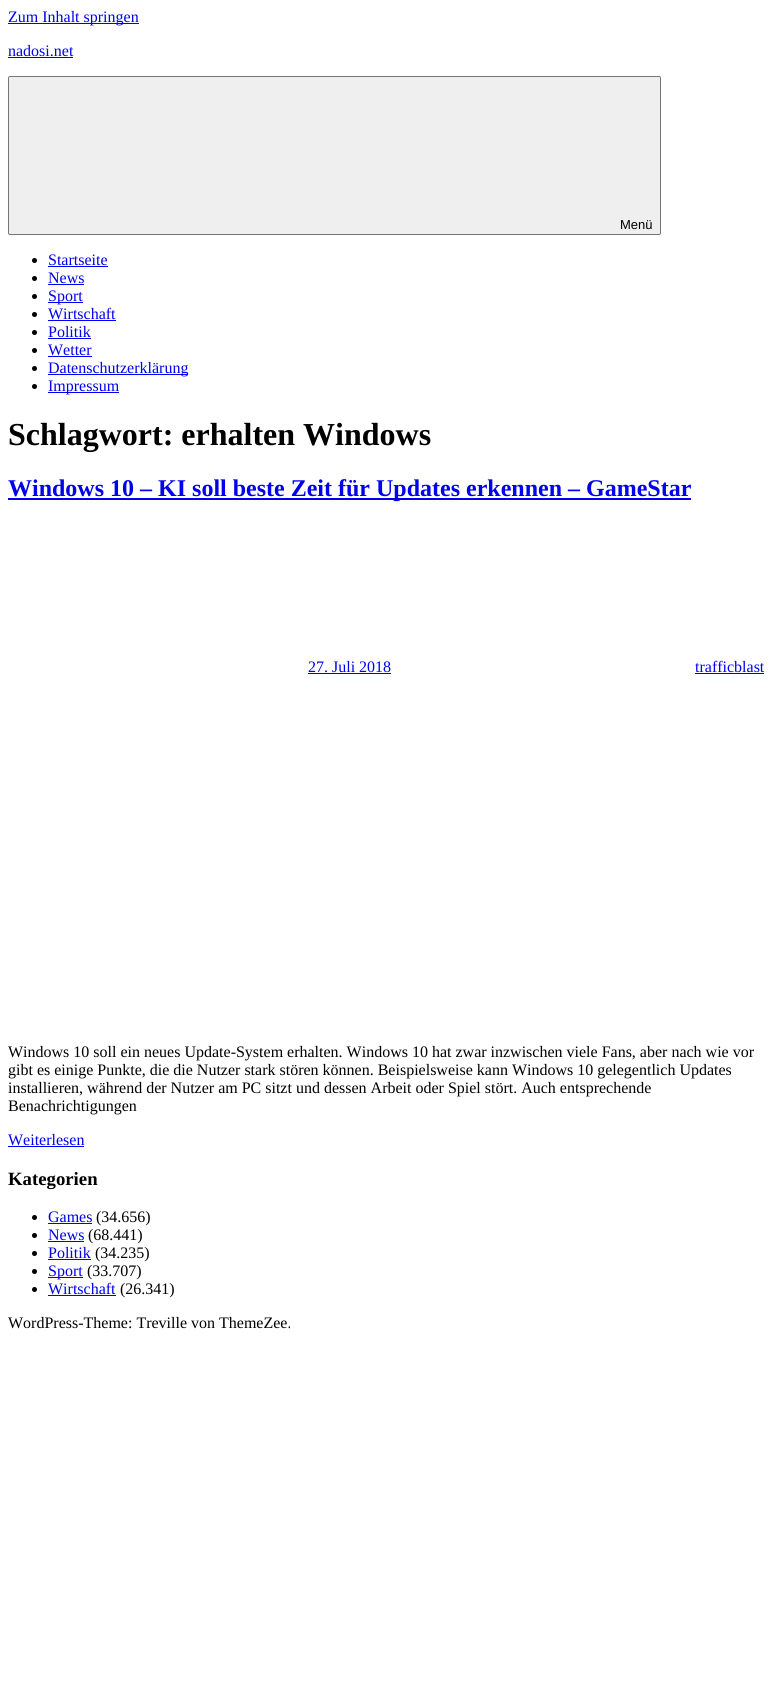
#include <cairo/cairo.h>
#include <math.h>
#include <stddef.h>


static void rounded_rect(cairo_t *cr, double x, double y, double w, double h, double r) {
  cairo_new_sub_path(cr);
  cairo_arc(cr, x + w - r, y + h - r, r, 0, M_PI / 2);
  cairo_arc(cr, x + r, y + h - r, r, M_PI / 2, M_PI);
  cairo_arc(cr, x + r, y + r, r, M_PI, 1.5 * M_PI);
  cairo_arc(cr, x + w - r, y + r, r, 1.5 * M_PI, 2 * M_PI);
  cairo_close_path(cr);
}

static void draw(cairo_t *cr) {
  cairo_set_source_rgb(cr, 1, 1, 1);
  cairo_paint(cr);
  cairo_set_source_rgb(cr, 0, 0, 238 / 255.0);
  cairo_rectangle(cr, 8, 23, 131, 1);
  cairo_fill(cr);
  cairo_rectangle(cr, 8, 57, 65, 1);
  cairo_fill(cr);
  cairo_set_source_rgb(cr, 239 / 255.0, 239 / 255.0, 239 / 255.0);
  rounded_rect(cr, 8.5, 76.5, 652, 158, 1.5);
  cairo_fill_preserve(cr);
  cairo_set_source_rgb(cr, 118 / 255.0, 118 / 255.0, 118 / 255.0);
  cairo_set_line_width(cr, 1);
  cairo_stroke(cr);
  cairo_set_source_rgb(cr, 0, 0, 0);
  cairo_arc(cr, 34.5, 260.5, 2.5, 0, 2 * M_PI);
  cairo_fill(cr);
  cairo_set_source_rgb(cr, 0, 0, 238 / 255.0);
  cairo_rectangle(cr, 48, 266, 60, 1);
  cairo_fill(cr);
  cairo_set_source_rgb(cr, 0, 0, 0);
  cairo_arc(cr, 34.5, 278.5, 2.5, 0, 2 * M_PI);
  cairo_fill(cr);
  cairo_set_source_rgb(cr, 0, 0, 238 / 255.0);
  cairo_rectangle(cr, 48, 284, 36, 1);
  cairo_fill(cr);
  cairo_set_source_rgb(cr, 0, 0, 0);
  cairo_arc(cr, 34.5, 296.5, 2.5, 0, 2 * M_PI);
  cairo_fill(cr);
  cairo_set_source_rgb(cr, 0, 0, 238 / 255.0);
  cairo_rectangle(cr, 48, 302, 35, 1);
  cairo_fill(cr);
  cairo_set_source_rgb(cr, 0, 0, 0);
  cairo_arc(cr, 34.5, 314.5, 2.5, 0, 2 * M_PI);
  cairo_fill(cr);
  cairo_set_source_rgb(cr, 0, 0, 238 / 255.0);
  cairo_rectangle(cr, 48, 320, 68, 1);
  cairo_fill(cr);
  cairo_set_source_rgb(cr, 0, 0, 0);
  cairo_arc(cr, 34.5, 332.5, 2.5, 0, 2 * M_PI);
  cairo_fill(cr);
  cairo_set_source_rgb(cr, 0, 0, 238 / 255.0);
  cairo_rectangle(cr, 48, 338, 43, 1);
  cairo_fill(cr);
  cairo_set_source_rgb(cr, 0, 0, 0);
  cairo_arc(cr, 34.5, 350.5, 2.5, 0, 2 * M_PI);
  cairo_fill(cr);
  cairo_set_source_rgb(cr, 0, 0, 238 / 255.0);
  cairo_rectangle(cr, 48, 356, 44, 1);
  cairo_fill(cr);
  cairo_set_source_rgb(cr, 0, 0, 0);
  cairo_arc(cr, 34.5, 368.5, 2.5, 0, 2 * M_PI);
  cairo_fill(cr);
  cairo_set_source_rgb(cr, 0, 0, 238 / 255.0);
  cairo_rectangle(cr, 48, 374, 140, 1);
  cairo_fill(cr);
  cairo_set_source_rgb(cr, 0, 0, 0);
  cairo_arc(cr, 34.5, 386.5, 2.5, 0, 2 * M_PI);
  cairo_fill(cr);
  cairo_set_source_rgb(cr, 0, 0, 238 / 255.0);
  cairo_rectangle(cr, 48, 392, 71, 1);
  cairo_fill(cr);
  cairo_rectangle(cr, 8, 498, 683, 2);
  cairo_fill(cr);
  cairo_rectangle(cr, 308, 673, 83, 1);
  cairo_fill(cr);
  cairo_rectangle(cr, 695, 673, 69, 1);
  cairo_fill(cr);
  cairo_rectangle(cr, 8, 1146, 76, 1);
  cairo_fill(cr);
  cairo_set_source_rgb(cr, 0, 0, 0);
  cairo_arc(cr, 34.5, 1217.5, 2.5, 0, 2 * M_PI);
  cairo_fill(cr);
  cairo_set_source_rgb(cr, 0, 0, 238 / 255.0);
  cairo_rectangle(cr, 48, 1223, 44, 1);
  cairo_fill(cr);
  cairo_set_source_rgb(cr, 0, 0, 0);
  cairo_arc(cr, 34.5, 1235.5, 2.5, 0, 2 * M_PI);
  cairo_fill(cr);
  cairo_set_source_rgb(cr, 0, 0, 238 / 255.0);
  cairo_rectangle(cr, 48, 1241, 36, 1);
  cairo_fill(cr);
  cairo_set_source_rgb(cr, 0, 0, 0);
  cairo_arc(cr, 34.5, 1253.5, 2.5, 0, 2 * M_PI);
  cairo_fill(cr);
  cairo_set_source_rgb(cr, 0, 0, 238 / 255.0);
  cairo_rectangle(cr, 48, 1259, 43, 1);
  cairo_fill(cr);
  cairo_set_source_rgb(cr, 0, 0, 0);
  cairo_arc(cr, 34.5, 1271.5, 2.5, 0, 2 * M_PI);
  cairo_fill(cr);
  cairo_set_source_rgb(cr, 0, 0, 238 / 255.0);
  cairo_rectangle(cr, 48, 1277, 35, 1);
  cairo_fill(cr);
  cairo_set_source_rgb(cr, 0, 0, 0);
  cairo_arc(cr, 34.5, 1289.5, 2.5, 0, 2 * M_PI);
  cairo_fill(cr);
  cairo_set_source_rgb(cr, 0, 0, 238 / 255.0);
  cairo_rectangle(cr, 48, 1295, 68, 1);
  cairo_fill(cr);
  cairo_select_font_face(cr, "Liberation Serif", CAIRO_FONT_SLANT_NORMAL, CAIRO_FONT_WEIGHT_NORMAL);
  cairo_set_font_size(cr, 16);
  cairo_move_to(cr, 8, 22);
  cairo_show_text(cr, "Zum Inhalt springen");
  cairo_move_to(cr, 8, 56);
  cairo_show_text(cr, "nadosi.net");
  cairo_select_font_face(cr, "Liberation Sans", CAIRO_FONT_SLANT_NORMAL, CAIRO_FONT_WEIGHT_NORMAL);
  cairo_set_font_size(cr, 13);
  cairo_set_source_rgb(cr, 0, 0, 0);
  cairo_move_to(cr, 620, 229);
  cairo_show_text(cr, "Menü");
  cairo_select_font_face(cr, "Liberation Serif", CAIRO_FONT_SLANT_NORMAL, CAIRO_FONT_WEIGHT_NORMAL);
  cairo_set_font_size(cr, 16);
  cairo_set_source_rgb(cr, 0, 0, 238 / 255.0);
  cairo_move_to(cr, 48, 265);
  cairo_show_text(cr, "Startseite");
  cairo_move_to(cr, 48, 283);
  cairo_show_text(cr, "News");
  cairo_move_to(cr, 48, 301);
  cairo_show_text(cr, "Sport");
  cairo_move_to(cr, 48, 319);
  cairo_show_text(cr, "Wirtschaft");
  cairo_move_to(cr, 48, 337);
  cairo_show_text(cr, "Politik");
  cairo_move_to(cr, 48, 355);
  cairo_show_text(cr, "Wetter");
  cairo_move_to(cr, 48, 373);
  cairo_show_text(cr, "Datenschutzerklärung");
  cairo_move_to(cr, 48, 391);
  cairo_show_text(cr, "Impressum");
  cairo_select_font_face(cr, "Liberation Serif", CAIRO_FONT_SLANT_NORMAL, CAIRO_FONT_WEIGHT_BOLD);
  cairo_set_font_size(cr, 32);
  cairo_set_source_rgb(cr, 0, 0, 0);
  cairo_move_to(cr, 8, 445);
  cairo_show_text(cr, "Schlagwort: erhalten Windows");
  cairo_set_font_size(cr, 24);
  cairo_set_source_rgb(cr, 0, 0, 238 / 255.0);
  cairo_move_to(cr, 8, 496);
  cairo_show_text(cr, "Windows 10 – KI soll beste Zeit für Updates erkennen – GameStar");
  cairo_select_font_face(cr, "Liberation Serif", CAIRO_FONT_SLANT_NORMAL, CAIRO_FONT_WEIGHT_NORMAL);
  cairo_set_font_size(cr, 16);
  cairo_move_to(cr, 308, 672);
  cairo_show_text(cr, "27. Juli 2018");
  cairo_move_to(cr, 695, 672);
  cairo_show_text(cr, "trafficblast");
  cairo_set_source_rgb(cr, 0, 0, 0);
  cairo_move_to(cr, 8, 1057);
  cairo_show_text(cr, "Windows 10 soll ein neues Update-System erhalten. Windows 10 hat zwar inzwischen viele Fans, aber nach wie vor");
  cairo_move_to(cr, 8, 1075);
  cairo_show_text(cr, "gibt es einige Punkte, die die Nutzer stark stören können. Beispielsweise kann Windows 10 gelegentlich Updates");
  cairo_move_to(cr, 8, 1093);
  cairo_show_text(cr, "installieren, während der Nutzer am PC sitzt und dessen Arbeit oder Spiel stört. Auch entsprechende");
  cairo_move_to(cr, 8, 1111);
  cairo_show_text(cr, "Benachrichtigungen");
  cairo_set_source_rgb(cr, 0, 0, 238 / 255.0);
  cairo_move_to(cr, 8, 1145);
  cairo_show_text(cr, "Weiterlesen");
  cairo_select_font_face(cr, "Liberation Serif", CAIRO_FONT_SLANT_NORMAL, CAIRO_FONT_WEIGHT_BOLD);
  cairo_set_font_size(cr, 18.75);
  cairo_set_source_rgb(cr, 0, 0, 0);
  cairo_move_to(cr, 8, 1185);
  cairo_show_text(cr, "Kategorien");
  cairo_select_font_face(cr, "Liberation Serif", CAIRO_FONT_SLANT_NORMAL, CAIRO_FONT_WEIGHT_NORMAL);
  cairo_set_font_size(cr, 16);
  cairo_set_source_rgb(cr, 0, 0, 238 / 255.0);
  cairo_move_to(cr, 48, 1222);
  cairo_show_text(cr, "Games");
  cairo_set_source_rgb(cr, 0, 0, 0);
  cairo_move_to(cr, 96, 1222);
  cairo_show_text(cr, "(34.656)");
  cairo_set_source_rgb(cr, 0, 0, 238 / 255.0);
  cairo_move_to(cr, 48, 1240);
  cairo_show_text(cr, "News");
  cairo_set_source_rgb(cr, 0, 0, 0);
  cairo_move_to(cr, 88, 1240);
  cairo_show_text(cr, "(68.441)");
  cairo_set_source_rgb(cr, 0, 0, 238 / 255.0);
  cairo_move_to(cr, 48, 1258);
  cairo_show_text(cr, "Politik");
  cairo_set_source_rgb(cr, 0, 0, 0);
  cairo_move_to(cr, 95, 1258);
  cairo_show_text(cr, "(34.235)");
  cairo_set_source_rgb(cr, 0, 0, 238 / 255.0);
  cairo_move_to(cr, 48, 1276);
  cairo_show_text(cr, "Sport");
  cairo_set_source_rgb(cr, 0, 0, 0);
  cairo_move_to(cr, 87, 1276);
  cairo_show_text(cr, "(33.707)");
  cairo_set_source_rgb(cr, 0, 0, 238 / 255.0);
  cairo_move_to(cr, 48, 1294);
  cairo_show_text(cr, "Wirtschaft");
  cairo_set_source_rgb(cr, 0, 0, 0);
  cairo_move_to(cr, 120, 1294);
  cairo_show_text(cr, "(26.341)");
  cairo_move_to(cr, 8, 1328);
  cairo_show_text(cr, "WordPress-Theme: Treville von ThemeZee.");
}

int main(void) {
  cairo_surface_t *surface = cairo_image_surface_create(CAIRO_FORMAT_RGB24, 777, 1682);
  cairo_t *cr = cairo_create(surface);
  cairo_font_options_t *options = cairo_font_options_create();
  cairo_font_options_set_hint_metrics(options, CAIRO_HINT_METRICS_OFF);
  cairo_font_options_set_hint_style(options, CAIRO_HINT_STYLE_NONE);
  cairo_set_font_options(cr, options);
  cairo_set_miter_limit(cr, 4);
  draw(cr);
  cairo_surface_write_to_png(surface, "out.png");
  cairo_font_options_destroy(options);
  cairo_destroy(cr);
  cairo_surface_destroy(surface);
  return 0;
}
